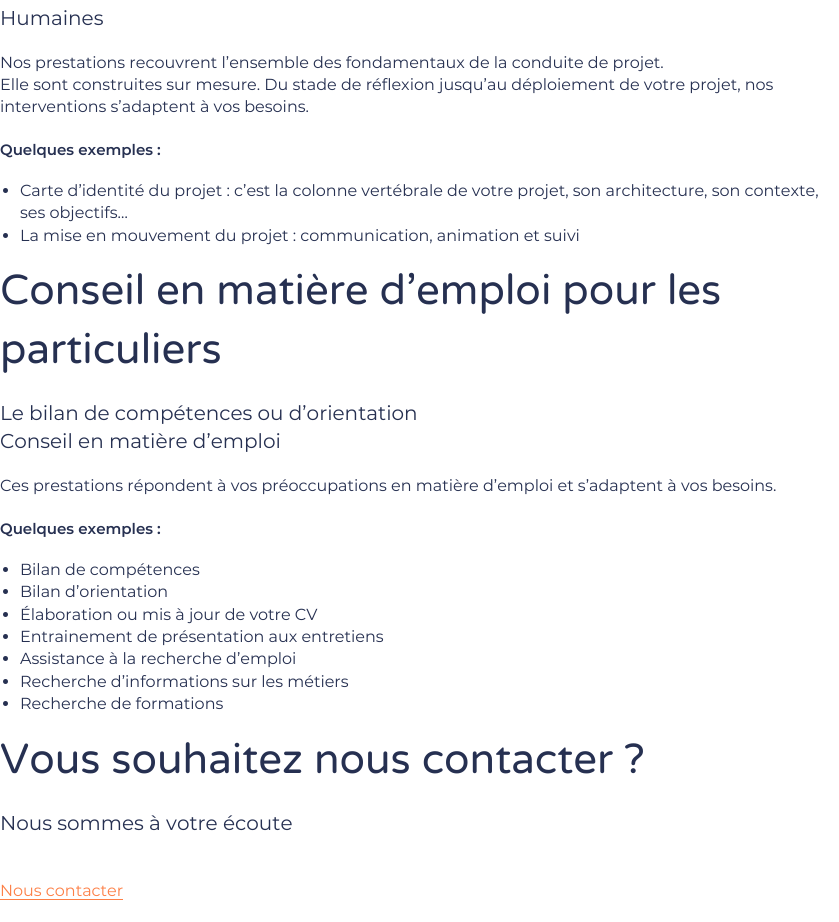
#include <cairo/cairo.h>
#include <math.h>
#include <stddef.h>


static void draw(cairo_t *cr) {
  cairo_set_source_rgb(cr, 1, 1, 1);
  cairo_paint(cr);
  cairo_set_source_rgb(cr, 38 / 255.0, 48 / 255.0, 81 / 255.0);
  cairo_arc(cr, 5.5, 190.5, 2.5, 0, 2 * M_PI);
  cairo_fill(cr);
  cairo_arc(cr, 5.5, 235.5, 2.5, 0, 2 * M_PI);
  cairo_fill(cr);
  cairo_arc(cr, 5.5, 569.5, 2.5, 0, 2 * M_PI);
  cairo_fill(cr);
  cairo_arc(cr, 5.5, 591.5, 2.5, 0, 2 * M_PI);
  cairo_fill(cr);
  cairo_arc(cr, 5.5, 614.5, 2.5, 0, 2 * M_PI);
  cairo_fill(cr);
  cairo_arc(cr, 5.5, 636.5, 2.5, 0, 2 * M_PI);
  cairo_fill(cr);
  cairo_arc(cr, 5.5, 658.5, 2.5, 0, 2 * M_PI);
  cairo_fill(cr);
  cairo_arc(cr, 5.5, 681.5, 2.5, 0, 2 * M_PI);
  cairo_fill(cr);
  cairo_arc(cr, 5.5, 703.5, 2.5, 0, 2 * M_PI);
  cairo_fill(cr);
  cairo_set_source_rgb(cr, 253 / 255.0, 128 / 255.0, 71 / 255.0);
  cairo_rectangle(cr, 0, 899, 123, 1);
  cairo_fill(cr);
  cairo_select_font_face(cr, "Montserrat", CAIRO_FONT_SLANT_NORMAL, CAIRO_FONT_WEIGHT_NORMAL);
  cairo_set_font_size(cr, 20);
  cairo_set_source_rgb(cr, 38 / 255.0, 48 / 255.0, 81 / 255.0);
  cairo_move_to(cr, 0, 25);
  cairo_show_text(cr, "Humaines");
  cairo_set_font_size(cr, 16);
  cairo_move_to(cr, 0, 68);
  cairo_show_text(cr, "Nos prestations recouvrent l’ensemble des fondamentaux de la conduite de projet.");
  cairo_move_to(cr, 0, 90);
  cairo_show_text(cr, "Elle sont construites sur mesure. Du stade de réflexion jusqu’au déploiement de votre projet, nos");
  cairo_move_to(cr, 0, 112);
  cairo_show_text(cr, "interventions s’adaptent à vos besoins.");
  cairo_select_font_face(cr, "Montserrat SemiBold", CAIRO_FONT_SLANT_NORMAL, CAIRO_FONT_WEIGHT_NORMAL);
  cairo_set_font_size(cr, 15);
  cairo_move_to(cr, 0, 155);
  cairo_show_text(cr, "Quelques exemples :");
  cairo_select_font_face(cr, "Montserrat", CAIRO_FONT_SLANT_NORMAL, CAIRO_FONT_WEIGHT_NORMAL);
  cairo_set_font_size(cr, 16);
  cairo_move_to(cr, 20, 196);
  cairo_show_text(cr, "Carte d’identité du projet : c’est la colonne vertébrale de votre projet, son architecture, son contexte,");
  cairo_move_to(cr, 20, 218);
  cairo_show_text(cr, "ses objectifs…");
  cairo_move_to(cr, 20, 241);
  cairo_show_text(cr, "La mise en mouvement du projet : communication, animation et suivi");
  cairo_select_font_face(cr, "Varela Round", CAIRO_FONT_SLANT_NORMAL, CAIRO_FONT_WEIGHT_NORMAL);
  cairo_set_font_size(cr, 42);
  cairo_move_to(cr, 0, 304);
  cairo_show_text(cr, "Conseil en matière d’emploi pour les");
  cairo_move_to(cr, 0, 363);
  cairo_show_text(cr, "particuliers");
  cairo_select_font_face(cr, "Montserrat", CAIRO_FONT_SLANT_NORMAL, CAIRO_FONT_WEIGHT_NORMAL);
  cairo_set_font_size(cr, 20);
  cairo_move_to(cr, 0, 420);
  cairo_show_text(cr, "Le bilan de compétences ou d’orientation");
  cairo_move_to(cr, 0, 448);
  cairo_show_text(cr, "Conseil en matière d’emploi");
  cairo_set_font_size(cr, 16);
  cairo_move_to(cr, 0, 491);
  cairo_show_text(cr, "Ces prestations répondent à vos préoccupations en matière d’emploi et s’adaptent à vos besoins.");
  cairo_select_font_face(cr, "Montserrat SemiBold", CAIRO_FONT_SLANT_NORMAL, CAIRO_FONT_WEIGHT_NORMAL);
  cairo_set_font_size(cr, 15);
  cairo_move_to(cr, 0, 534);
  cairo_show_text(cr, "Quelques exemples :");
  cairo_select_font_face(cr, "Montserrat", CAIRO_FONT_SLANT_NORMAL, CAIRO_FONT_WEIGHT_NORMAL);
  cairo_set_font_size(cr, 16);
  cairo_move_to(cr, 20, 575);
  cairo_show_text(cr, "Bilan de compétences");
  cairo_move_to(cr, 20, 597);
  cairo_show_text(cr, "Bilan d’orientation");
  cairo_move_to(cr, 20, 620);
  cairo_show_text(cr, "Élaboration ou mis à jour de votre CV");
  cairo_move_to(cr, 20, 642);
  cairo_show_text(cr, "Entrainement de présentation aux entretiens");
  cairo_move_to(cr, 20, 664);
  cairo_show_text(cr, "Assistance à la recherche d’emploi");
  cairo_move_to(cr, 20, 687);
  cairo_show_text(cr, "Recherche d’informations sur les métiers");
  cairo_move_to(cr, 20, 709);
  cairo_show_text(cr, "Recherche de formations");
  cairo_select_font_face(cr, "Varela Round", CAIRO_FONT_SLANT_NORMAL, CAIRO_FONT_WEIGHT_NORMAL);
  cairo_set_font_size(cr, 42);
  cairo_move_to(cr, 0, 773);
  cairo_show_text(cr, "Vous souhaitez nous contacter ?");
  cairo_select_font_face(cr, "Montserrat", CAIRO_FONT_SLANT_NORMAL, CAIRO_FONT_WEIGHT_NORMAL);
  cairo_set_font_size(cr, 20);
  cairo_move_to(cr, 0, 830);
  cairo_show_text(cr, "Nous sommes à votre écoute");
  cairo_set_font_size(cr, 16);
  cairo_set_source_rgb(cr, 253 / 255.0, 128 / 255.0, 71 / 255.0);
  cairo_move_to(cr, 0, 896);
  cairo_show_text(cr, "Nous contacter");
}

int main(void) {
  cairo_surface_t *surface = cairo_image_surface_create(CAIRO_FORMAT_RGB24, 839, 922);
  cairo_t *cr = cairo_create(surface);
  cairo_font_options_t *options = cairo_font_options_create();
  cairo_font_options_set_hint_metrics(options, CAIRO_HINT_METRICS_OFF);
  cairo_font_options_set_hint_style(options, CAIRO_HINT_STYLE_NONE);
  cairo_set_font_options(cr, options);
  cairo_set_miter_limit(cr, 4);
  draw(cr);
  cairo_surface_write_to_png(surface, "out.png");
  cairo_font_options_destroy(options);
  cairo_destroy(cr);
  cairo_surface_destroy(surface);
  return 0;
}
